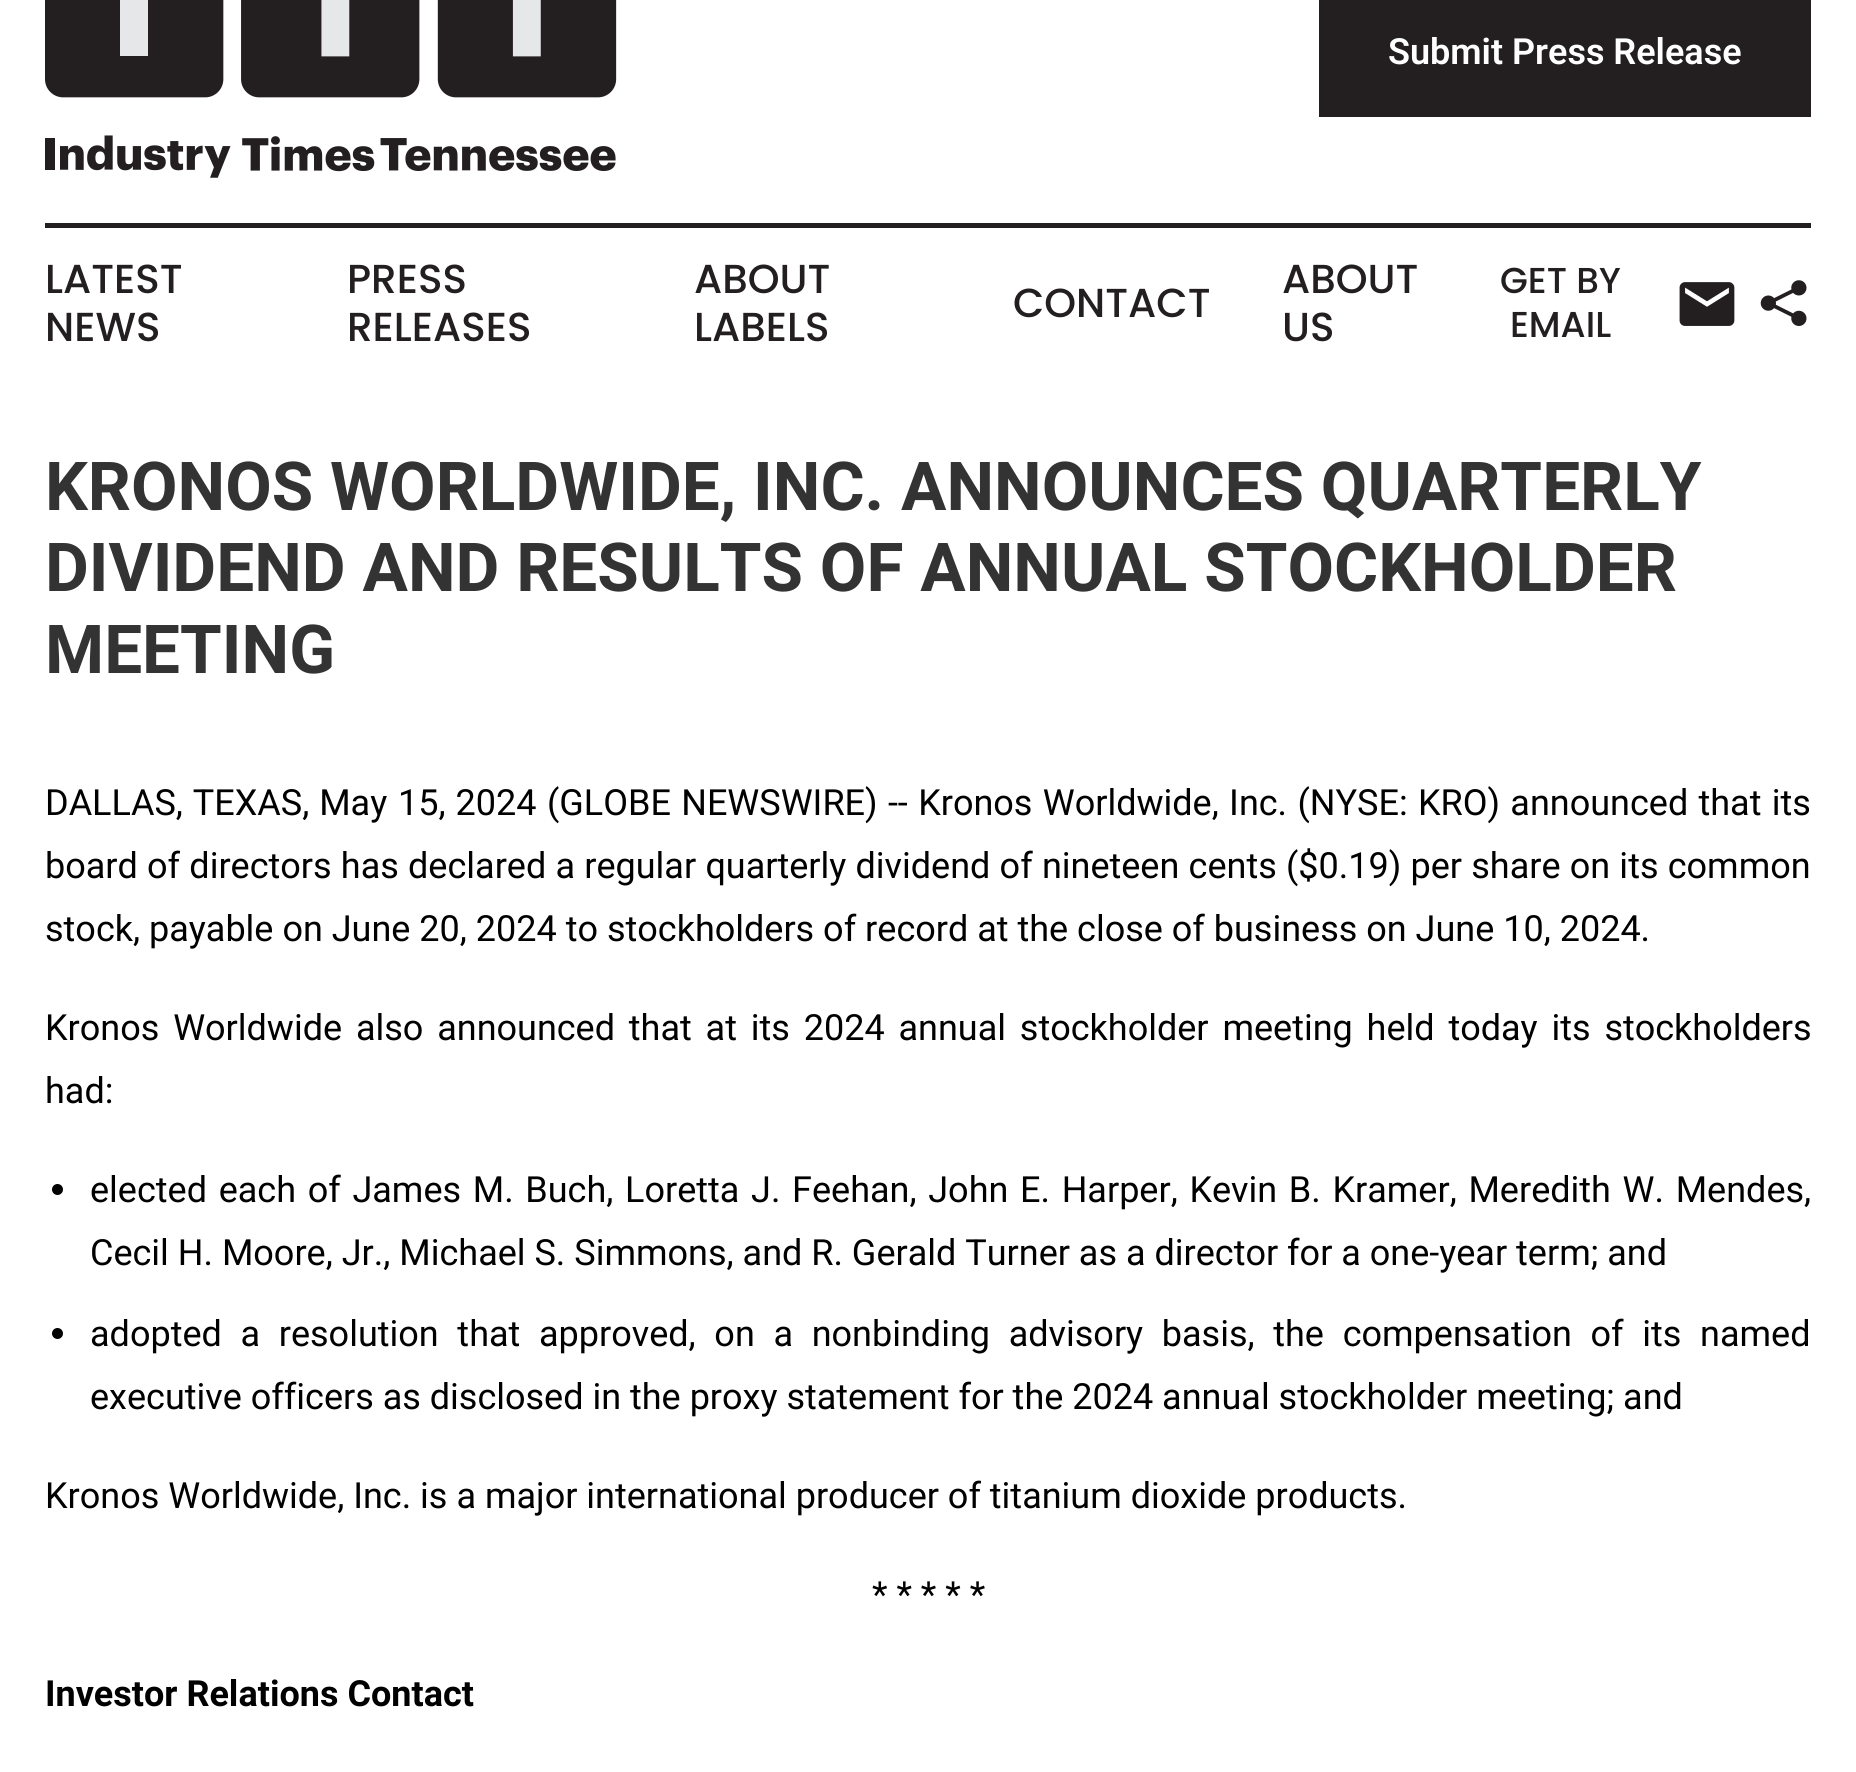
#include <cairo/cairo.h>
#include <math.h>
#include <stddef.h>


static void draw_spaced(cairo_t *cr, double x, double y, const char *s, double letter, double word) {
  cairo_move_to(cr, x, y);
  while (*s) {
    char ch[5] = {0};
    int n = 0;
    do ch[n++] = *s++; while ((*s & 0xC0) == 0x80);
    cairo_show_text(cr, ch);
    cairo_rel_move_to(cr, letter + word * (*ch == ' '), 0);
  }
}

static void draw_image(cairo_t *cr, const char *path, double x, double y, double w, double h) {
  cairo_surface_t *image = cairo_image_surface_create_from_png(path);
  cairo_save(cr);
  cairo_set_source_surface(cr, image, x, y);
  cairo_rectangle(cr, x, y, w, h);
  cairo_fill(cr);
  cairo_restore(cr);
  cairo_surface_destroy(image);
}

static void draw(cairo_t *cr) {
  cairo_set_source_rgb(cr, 1, 1, 1);
  cairo_paint(cr);
  draw_image(cr, "images/1.png", 45, 0, 572, 178);
  cairo_set_source_rgb(cr, 35 / 255.0, 31 / 255.0, 32 / 255.0);
  cairo_rectangle(cr, 1319, 0, 492, 117);
  cairo_fill(cr);
  cairo_rectangle(cr, 45, 223, 1766, 5);
  cairo_fill(cr);
  draw_image(cr, "images/2.png", 1679, 282, 56, 44);
  draw_image(cr, "images/3.png", 1760, 280, 47, 46);
  cairo_set_source_rgb(cr, 0, 0, 0);
  cairo_arc(cr, 57.5, 1189.5, 5.5, 0, 2 * M_PI);
  cairo_fill(cr);
  cairo_arc(cr, 57.5, 1333.5, 5.5, 0, 2 * M_PI);
  cairo_fill(cr);
  cairo_select_font_face(cr, "Roboto SemiBold", CAIRO_FONT_SLANT_NORMAL, CAIRO_FONT_WEIGHT_NORMAL);
  cairo_set_font_size(cr, 36);
  cairo_set_source_rgb(cr, 1, 1, 1);
  cairo_move_to(cr, 1388, 64);
  cairo_show_text(cr, "Submit Press Release");
  cairo_select_font_face(cr, "Poppins Medium", CAIRO_FONT_SLANT_NORMAL, CAIRO_FONT_WEIGHT_NORMAL);
  cairo_set_font_size(cr, 40.5);
  cairo_set_source_rgb(cr, 35 / 255.0, 31 / 255.0, 32 / 255.0);
  cairo_move_to(cr, 45, 293);
  cairo_show_text(cr, "LATEST");
  cairo_move_to(cr, 45, 341);
  cairo_show_text(cr, "NEWS");
  cairo_move_to(cr, 347, 293);
  cairo_show_text(cr, "PRESS");
  cairo_move_to(cr, 347, 341);
  cairo_show_text(cr, "RELEASES");
  cairo_move_to(cr, 694, 293);
  cairo_show_text(cr, "ABOUT");
  cairo_move_to(cr, 694, 341);
  cairo_show_text(cr, "LABELS");
  cairo_move_to(cr, 1013, 317);
  cairo_show_text(cr, "CONTACT");
  cairo_move_to(cr, 1282, 293);
  cairo_show_text(cr, "ABOUT");
  cairo_move_to(cr, 1282, 341);
  cairo_show_text(cr, "US");
  cairo_set_font_size(cr, 36);
  cairo_move_to(cr, 1500, 293);
  cairo_show_text(cr, "GET BY");
  cairo_move_to(cr, 1510, 337);
  cairo_show_text(cr, "EMAIL");
  cairo_select_font_face(cr, "Roboto", CAIRO_FONT_SLANT_NORMAL, CAIRO_FONT_WEIGHT_BOLD);
  cairo_set_font_size(cr, 67.5);
  cairo_set_source_rgb(cr, 51 / 255.0, 51 / 255.0, 51 / 255.0);
  cairo_move_to(cr, 45, 510);
  cairo_show_text(cr, "KRONOS WORLDWIDE, INC. ANNOUNCES QUARTERLY");
  cairo_move_to(cr, 45, 591);
  cairo_show_text(cr, "DIVIDEND AND RESULTS OF ANNUAL STOCKHOLDER");
  cairo_move_to(cr, 45, 673);
  cairo_show_text(cr, "MEETING");
  cairo_select_font_face(cr, "Roboto", CAIRO_FONT_SLANT_NORMAL, CAIRO_FONT_WEIGHT_NORMAL);
  cairo_set_font_size(cr, 36);
  cairo_set_source_rgb(cr, 0, 0, 0);
  draw_spaced(cr, 45, 815, "DALLAS, TEXAS, May", 0, 1);
  draw_spaced(cr, 398, 815, "15, 2024", 0, 1);
  draw_spaced(cr, 547, 815, "(GLOBE NEWSWIRE) -- Kronos Worldwide, Inc. (NYSE: KRO) announced that its", 0, 1.4);
  draw_spaced(cr, 45, 878, "board of directors has declared a regular quarterly dividend of nineteen cents ($0.19) per share on its common", 0, 0.3);
  cairo_move_to(cr, 45, 941);
  cairo_show_text(cr, "stock, payable on June 20, 2024 to stockholders of record at the close of business on June 10, 2024.");
  draw_spaced(cr, 45, 1040, "Kronos Worldwide also announced that at its 2024 annual stockholder meeting held today its stockholders", 0, 4.9);
  cairo_move_to(cr, 45, 1103);
  cairo_show_text(cr, "had:");
  draw_spaced(cr, 90, 1202, "elected each of James M. Buch, Loretta J. Feehan, John E. Harper, Kevin B. Kramer, Meredith W. Mendes,", 0, 2.75);
  cairo_move_to(cr, 90, 1265);
  cairo_show_text(cr, "Cecil H. Moore, Jr., Michael S. Simmons, and R. Gerald Turner as a director for a one-year term; and");
  draw_spaced(cr, 90, 1346, "adopted a resolution that approved, on a nonbinding advisory basis, the compensation of its named", 0, 9.75);
  cairo_move_to(cr, 90, 1409);
  cairo_show_text(cr, "executive officers as disclosed in the proxy statement for the 2024 annual stockholder meeting; and");
  cairo_move_to(cr, 45, 1508);
  cairo_show_text(cr, "Kronos Worldwide, Inc. is a major international producer of titanium dioxide products.");
  cairo_move_to(cr, 872, 1607);
  cairo_show_text(cr, "* * * * *");
  cairo_select_font_face(cr, "Roboto", CAIRO_FONT_SLANT_NORMAL, CAIRO_FONT_WEIGHT_BOLD);
  cairo_move_to(cr, 45, 1706);
  cairo_show_text(cr, "Investor Relations Contact");
}

int main(void) {
  cairo_surface_t *surface = cairo_image_surface_create(CAIRO_FORMAT_RGB24, 1856, 1772);
  cairo_t *cr = cairo_create(surface);
  cairo_font_options_t *options = cairo_font_options_create();
  cairo_font_options_set_hint_metrics(options, CAIRO_HINT_METRICS_OFF);
  cairo_font_options_set_hint_style(options, CAIRO_HINT_STYLE_NONE);
  cairo_set_font_options(cr, options);
  cairo_set_miter_limit(cr, 4);
  draw(cr);
  cairo_surface_write_to_png(surface, "out.png");
  cairo_font_options_destroy(options);
  cairo_destroy(cr);
  cairo_surface_destroy(surface);
  return 0;
}
